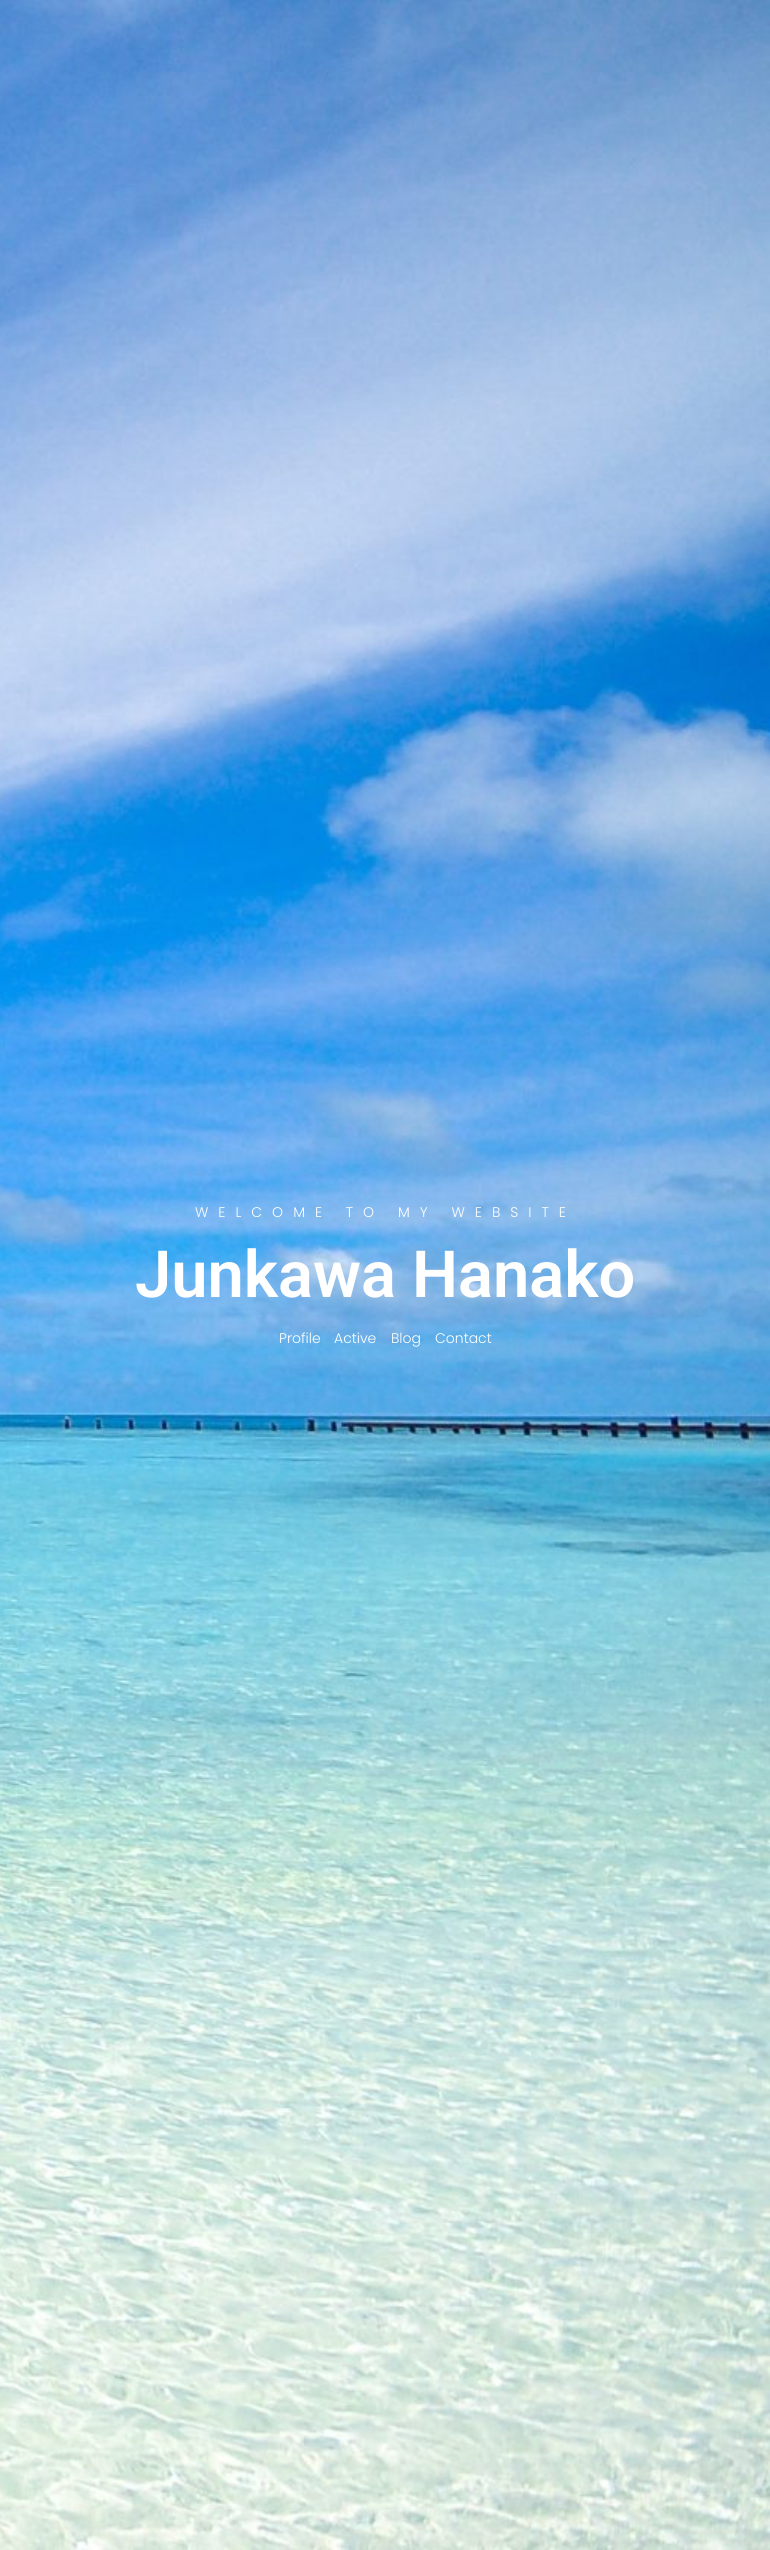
#include <cairo/cairo.h>
#include <math.h>
#include <stddef.h>


static void draw_spaced(cairo_t *cr, double x, double y, const char *s, double letter, double word) {
  cairo_move_to(cr, x, y);
  while (*s) {
    char ch[5] = {0};
    int n = 0;
    do ch[n++] = *s++; while ((*s & 0xC0) == 0x80);
    cairo_show_text(cr, ch);
    cairo_rel_move_to(cr, letter + word * (*ch == ' '), 0);
  }
}

static void draw_image(cairo_t *cr, const char *path, double x, double y, double w, double h) {
  cairo_surface_t *image = cairo_image_surface_create_from_png(path);
  cairo_save(cr);
  cairo_set_source_surface(cr, image, x, y);
  cairo_rectangle(cr, x, y, w, h);
  cairo_fill(cr);
  cairo_restore(cr);
  cairo_surface_destroy(image);
}

static void draw(cairo_t *cr) {
  cairo_set_source_rgb(cr, 1, 1, 1);
  cairo_paint(cr);
  draw_image(cr, "images/1.png", 0, 0, 770, 2550);
  cairo_select_font_face(cr, "Poppins Light", CAIRO_FONT_SLANT_NORMAL, CAIRO_FONT_WEIGHT_NORMAL);
  cairo_set_font_size(cr, 14);
  cairo_set_source_rgb(cr, 1, 1, 1);
  draw_spaced(cr, 195, 1217, "WELCOME TO MY WEBSITE", 10, 0);
  cairo_select_font_face(cr, "Roboto SemiBold", CAIRO_FONT_SLANT_NORMAL, CAIRO_FONT_WEIGHT_NORMAL);
  cairo_set_font_size(cr, 65);
  cairo_move_to(cr, 135, 1297);
  cairo_show_text(cr, "Junkawa Hanako");
  cairo_select_font_face(cr, "Poppins Light", CAIRO_FONT_SLANT_NORMAL, CAIRO_FONT_WEIGHT_NORMAL);
  cairo_set_font_size(cr, 14);
  cairo_move_to(cr, 279, 1343);
  cairo_show_text(cr, "Profile");
  cairo_move_to(cr, 334, 1343);
  cairo_show_text(cr, "Active");
  cairo_move_to(cr, 391, 1343);
  cairo_show_text(cr, "Blog");
  cairo_move_to(cr, 435, 1343);
  cairo_show_text(cr, "Contact");
}

int main(void) {
  cairo_surface_t *surface = cairo_image_surface_create(CAIRO_FORMAT_RGB24, 770, 2550);
  cairo_t *cr = cairo_create(surface);
  cairo_font_options_t *options = cairo_font_options_create();
  cairo_font_options_set_hint_metrics(options, CAIRO_HINT_METRICS_OFF);
  cairo_font_options_set_hint_style(options, CAIRO_HINT_STYLE_NONE);
  cairo_set_font_options(cr, options);
  cairo_set_miter_limit(cr, 4);
  draw(cr);
  cairo_surface_write_to_png(surface, "out.png");
  cairo_font_options_destroy(options);
  cairo_destroy(cr);
  cairo_surface_destroy(surface);
  return 0;
}
